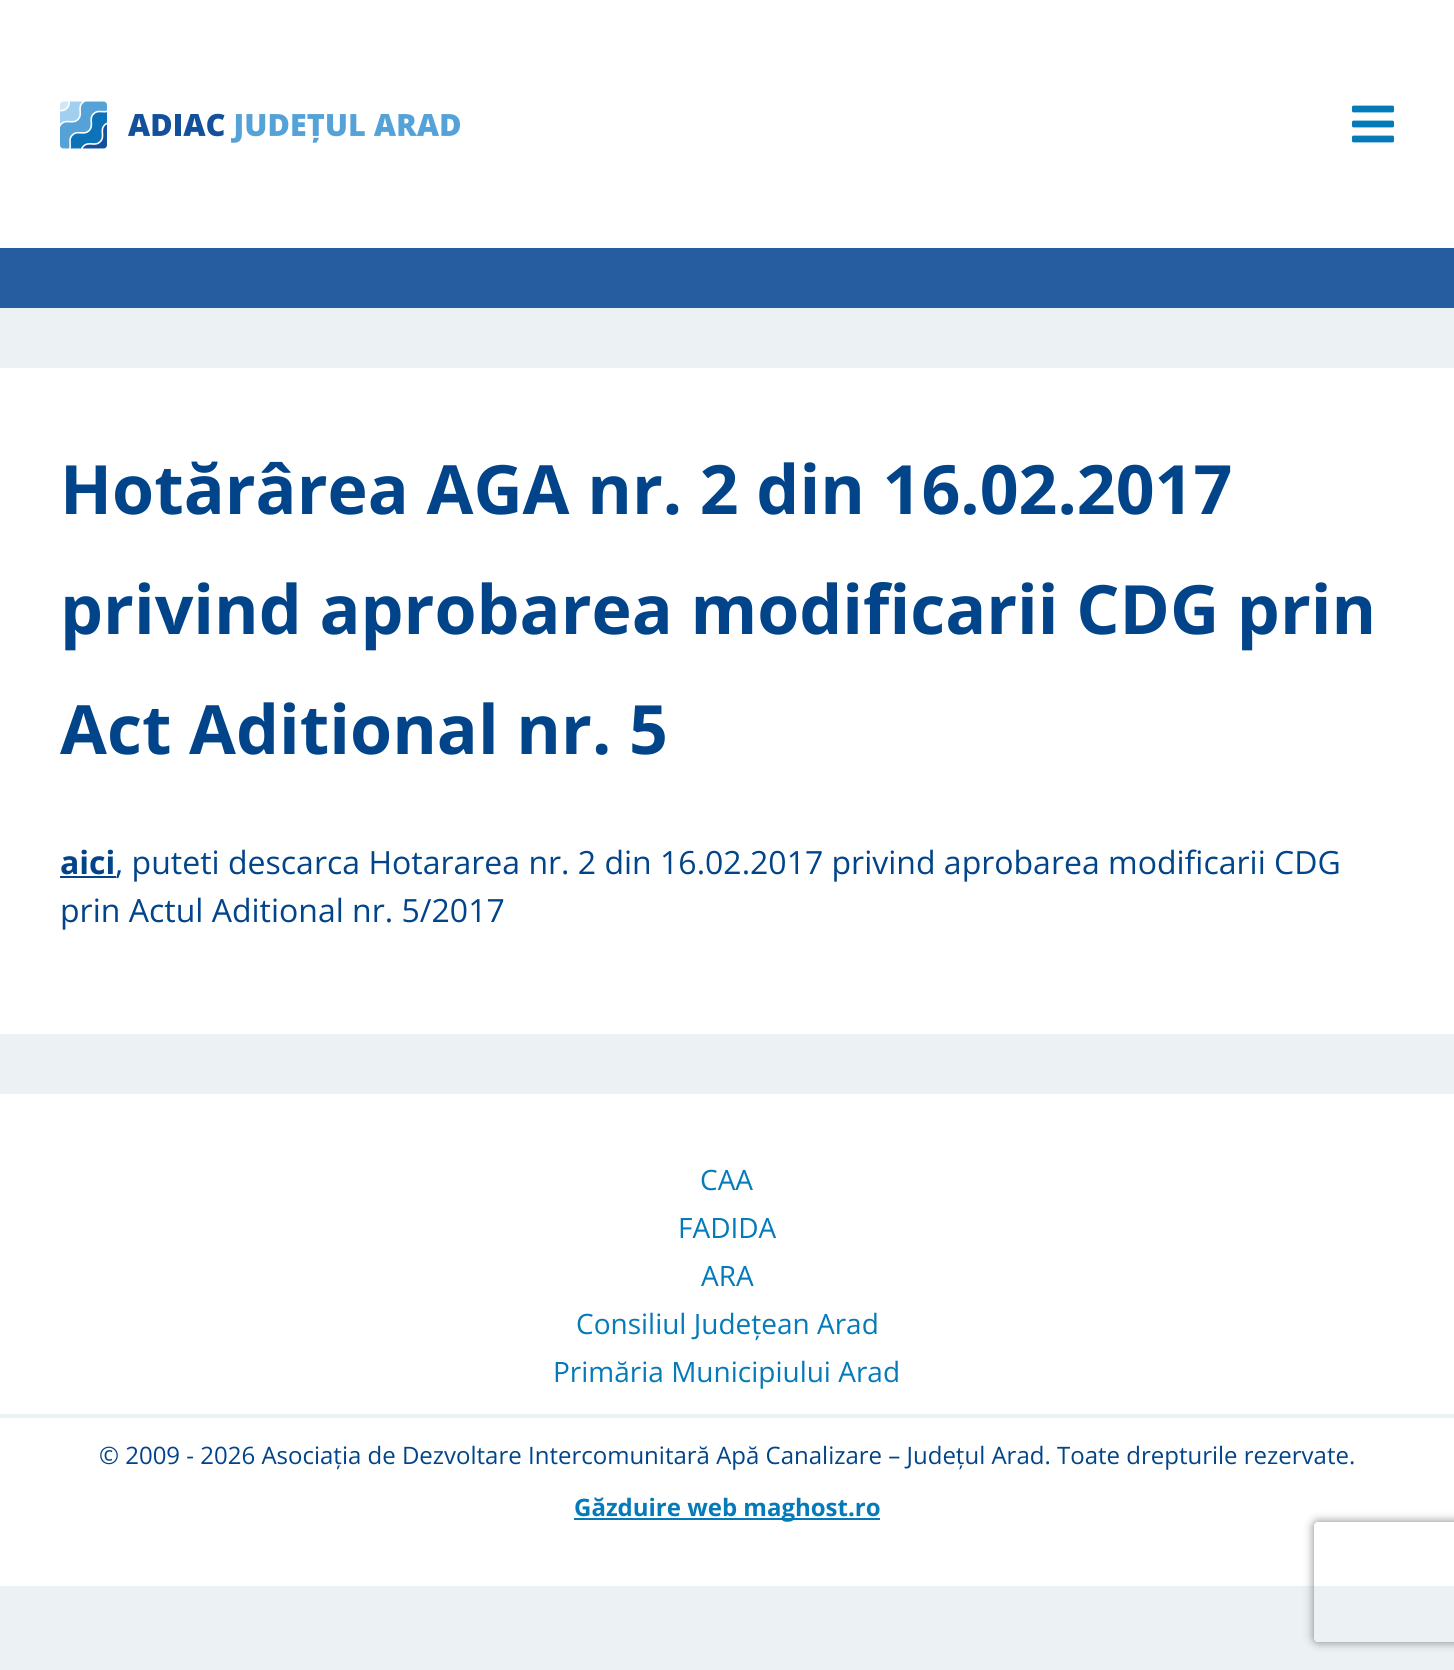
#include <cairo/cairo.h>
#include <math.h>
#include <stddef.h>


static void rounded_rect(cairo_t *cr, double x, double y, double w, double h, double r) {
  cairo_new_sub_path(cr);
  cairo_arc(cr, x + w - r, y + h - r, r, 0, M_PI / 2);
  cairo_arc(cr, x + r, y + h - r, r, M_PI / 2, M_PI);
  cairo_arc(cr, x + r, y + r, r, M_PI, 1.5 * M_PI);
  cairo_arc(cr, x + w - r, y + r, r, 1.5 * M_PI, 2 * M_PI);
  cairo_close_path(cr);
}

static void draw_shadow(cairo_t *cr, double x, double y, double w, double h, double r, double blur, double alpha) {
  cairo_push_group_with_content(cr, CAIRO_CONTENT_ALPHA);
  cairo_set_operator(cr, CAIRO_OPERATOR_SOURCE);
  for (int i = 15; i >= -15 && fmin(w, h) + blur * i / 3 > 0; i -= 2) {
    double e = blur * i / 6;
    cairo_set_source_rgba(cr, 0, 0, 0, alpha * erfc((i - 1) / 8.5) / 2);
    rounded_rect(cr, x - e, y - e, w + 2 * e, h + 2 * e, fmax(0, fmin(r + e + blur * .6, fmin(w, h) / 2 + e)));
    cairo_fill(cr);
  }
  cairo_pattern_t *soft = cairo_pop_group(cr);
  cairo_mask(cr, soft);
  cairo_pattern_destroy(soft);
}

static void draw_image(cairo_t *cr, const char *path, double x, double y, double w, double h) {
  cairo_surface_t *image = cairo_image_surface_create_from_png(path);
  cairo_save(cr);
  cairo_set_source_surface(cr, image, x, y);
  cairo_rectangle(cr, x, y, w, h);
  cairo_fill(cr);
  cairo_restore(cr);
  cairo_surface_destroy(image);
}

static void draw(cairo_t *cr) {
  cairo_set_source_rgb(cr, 236 / 255.0, 242 / 255.0, 243 / 255.0);
  cairo_paint(cr);
  cairo_set_source_rgb(cr, 1, 1, 1);
  cairo_rectangle(cr, 0, 0, 1454, 248);
  cairo_fill(cr);
  draw_image(cr, "images/1.png", 60, 101, 400, 48);
  draw_image(cr, "images/2.png", 1352, 105, 42, 38);
  cairo_set_source_rgb(cr, 38 / 255.0, 92 / 255.0, 160 / 255.0);
  cairo_rectangle(cr, 0, 248, 1454, 60);
  cairo_fill(cr);
  cairo_set_source_rgb(cr, 1, 1, 1);
  cairo_rectangle(cr, 0, 368, 1454, 666);
  cairo_fill(cr);
  cairo_set_source_rgb(cr, 1 / 255.0, 68 / 255.0, 137 / 255.0);
  cairo_rectangle(cr, 60, 876, 56, 2);
  cairo_fill(cr);
  cairo_set_source_rgb(cr, 1, 1, 1);
  cairo_rectangle(cr, 0, 1094, 1454, 492);
  cairo_fill(cr);
  cairo_set_source_rgb(cr, 236 / 255.0, 242 / 255.0, 243 / 255.0);
  cairo_rectangle(cr, 0, 1414, 1454, 4);
  cairo_fill(cr);
  cairo_set_source_rgb(cr, 5 / 255.0, 122 / 255.0, 184 / 255.0);
  cairo_rectangle(cr, 574, 1518, 306, 2);
  cairo_fill(cr);
  cairo_save(cr);
  cairo_set_fill_rule(cr, CAIRO_FILL_RULE_EVEN_ODD);
  cairo_new_path(cr);
  cairo_move_to(cr, 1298, 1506);
  cairo_line_to(cr, 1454, 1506);
  cairo_line_to(cr, 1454, 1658);
  cairo_line_to(cr, 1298, 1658);
  cairo_close_path(cr);
  cairo_move_to(cr, 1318, 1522);
  cairo_line_to(cr, 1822, 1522);
  cairo_curve_to(cr, 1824, 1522, 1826, 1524, 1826, 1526);
  cairo_line_to(cr, 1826, 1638);
  cairo_curve_to(cr, 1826, 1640, 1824, 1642, 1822, 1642);
  cairo_line_to(cr, 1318, 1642);
  cairo_curve_to(cr, 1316, 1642, 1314, 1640, 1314, 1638);
  cairo_line_to(cr, 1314, 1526);
  cairo_curve_to(cr, 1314, 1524, 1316, 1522, 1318, 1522);
  cairo_close_path(cr);
  cairo_clip(cr);
  cairo_set_source_rgb(cr, 128 / 255.0, 128 / 255.0, 128 / 255.0);
  draw_shadow(cr, 1314, 1522, 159, 120, 4, 5, 1);
  cairo_restore(cr);
  cairo_select_font_face(cr, "Open Sans", CAIRO_FONT_SLANT_NORMAL, CAIRO_FONT_WEIGHT_BOLD);
  cairo_set_font_size(cr, 68);
  cairo_set_source_rgb(cr, 1 / 255.0, 68 / 255.0, 137 / 255.0);
  cairo_move_to(cr, 60, 514);
  cairo_show_text(cr, "Hotărârea AGA nr. 2 din 16.02.2017");
  cairo_move_to(cr, 60, 634);
  cairo_show_text(cr, "privind aprobarea modificarii CDG prin");
  cairo_move_to(cr, 60, 754);
  cairo_show_text(cr, "Act Aditional nr. 5");
  cairo_set_font_size(cr, 32);
  cairo_move_to(cr, 60, 874);
  cairo_show_text(cr, "aici");
  cairo_select_font_face(cr, "Open Sans", CAIRO_FONT_SLANT_NORMAL, CAIRO_FONT_WEIGHT_NORMAL);
  cairo_move_to(cr, 115, 874);
  cairo_show_text(cr, ", puteti descarca Hotararea nr. 2 din 16.02.2017 privind aprobarea modificarii CDG");
  cairo_move_to(cr, 60, 922);
  cairo_show_text(cr, "prin Actul Aditional nr. 5/2017");
  cairo_set_font_size(cr, 28);
  cairo_set_source_rgb(cr, 5 / 255.0, 122 / 255.0, 184 / 255.0);
  cairo_move_to(cr, 700, 1190);
  cairo_show_text(cr, "CAA");
  cairo_move_to(cr, 678, 1238);
  cairo_show_text(cr, "FADIDA");
  cairo_move_to(cr, 701, 1286);
  cairo_show_text(cr, "ARA");
  cairo_move_to(cr, 576, 1334);
  cairo_show_text(cr, "Consiliul Județean Arad");
  cairo_move_to(cr, 553, 1382);
  cairo_show_text(cr, "Primăria Municipiului Arad");
  cairo_set_font_size(cr, 24);
  cairo_set_source_rgb(cr, 1 / 255.0, 68 / 255.0, 137 / 255.0);
  cairo_move_to(cr, 99, 1464);
  cairo_show_text(cr, "© 2009 - 2026 Asociația de Dezvoltare Intercomunitară Apă Canalizare – Județul Arad. Toate drepturile rezervate.");
  cairo_select_font_face(cr, "Open Sans", CAIRO_FONT_SLANT_NORMAL, CAIRO_FONT_WEIGHT_BOLD);
  cairo_set_source_rgb(cr, 5 / 255.0, 122 / 255.0, 184 / 255.0);
  cairo_move_to(cr, 574, 1516);
  cairo_show_text(cr, "Găzduire web maghost.ro");
}

int main(void) {
  cairo_surface_t *surface = cairo_image_surface_create(CAIRO_FORMAT_RGB24, 1454, 1670);
  cairo_t *cr = cairo_create(surface);
  cairo_font_options_t *options = cairo_font_options_create();
  cairo_font_options_set_hint_metrics(options, CAIRO_HINT_METRICS_OFF);
  cairo_font_options_set_hint_style(options, CAIRO_HINT_STYLE_NONE);
  cairo_set_font_options(cr, options);
  cairo_set_miter_limit(cr, 4);
  draw(cr);
  cairo_surface_write_to_png(surface, "out.png");
  cairo_font_options_destroy(options);
  cairo_destroy(cr);
  cairo_surface_destroy(surface);
  return 0;
}
